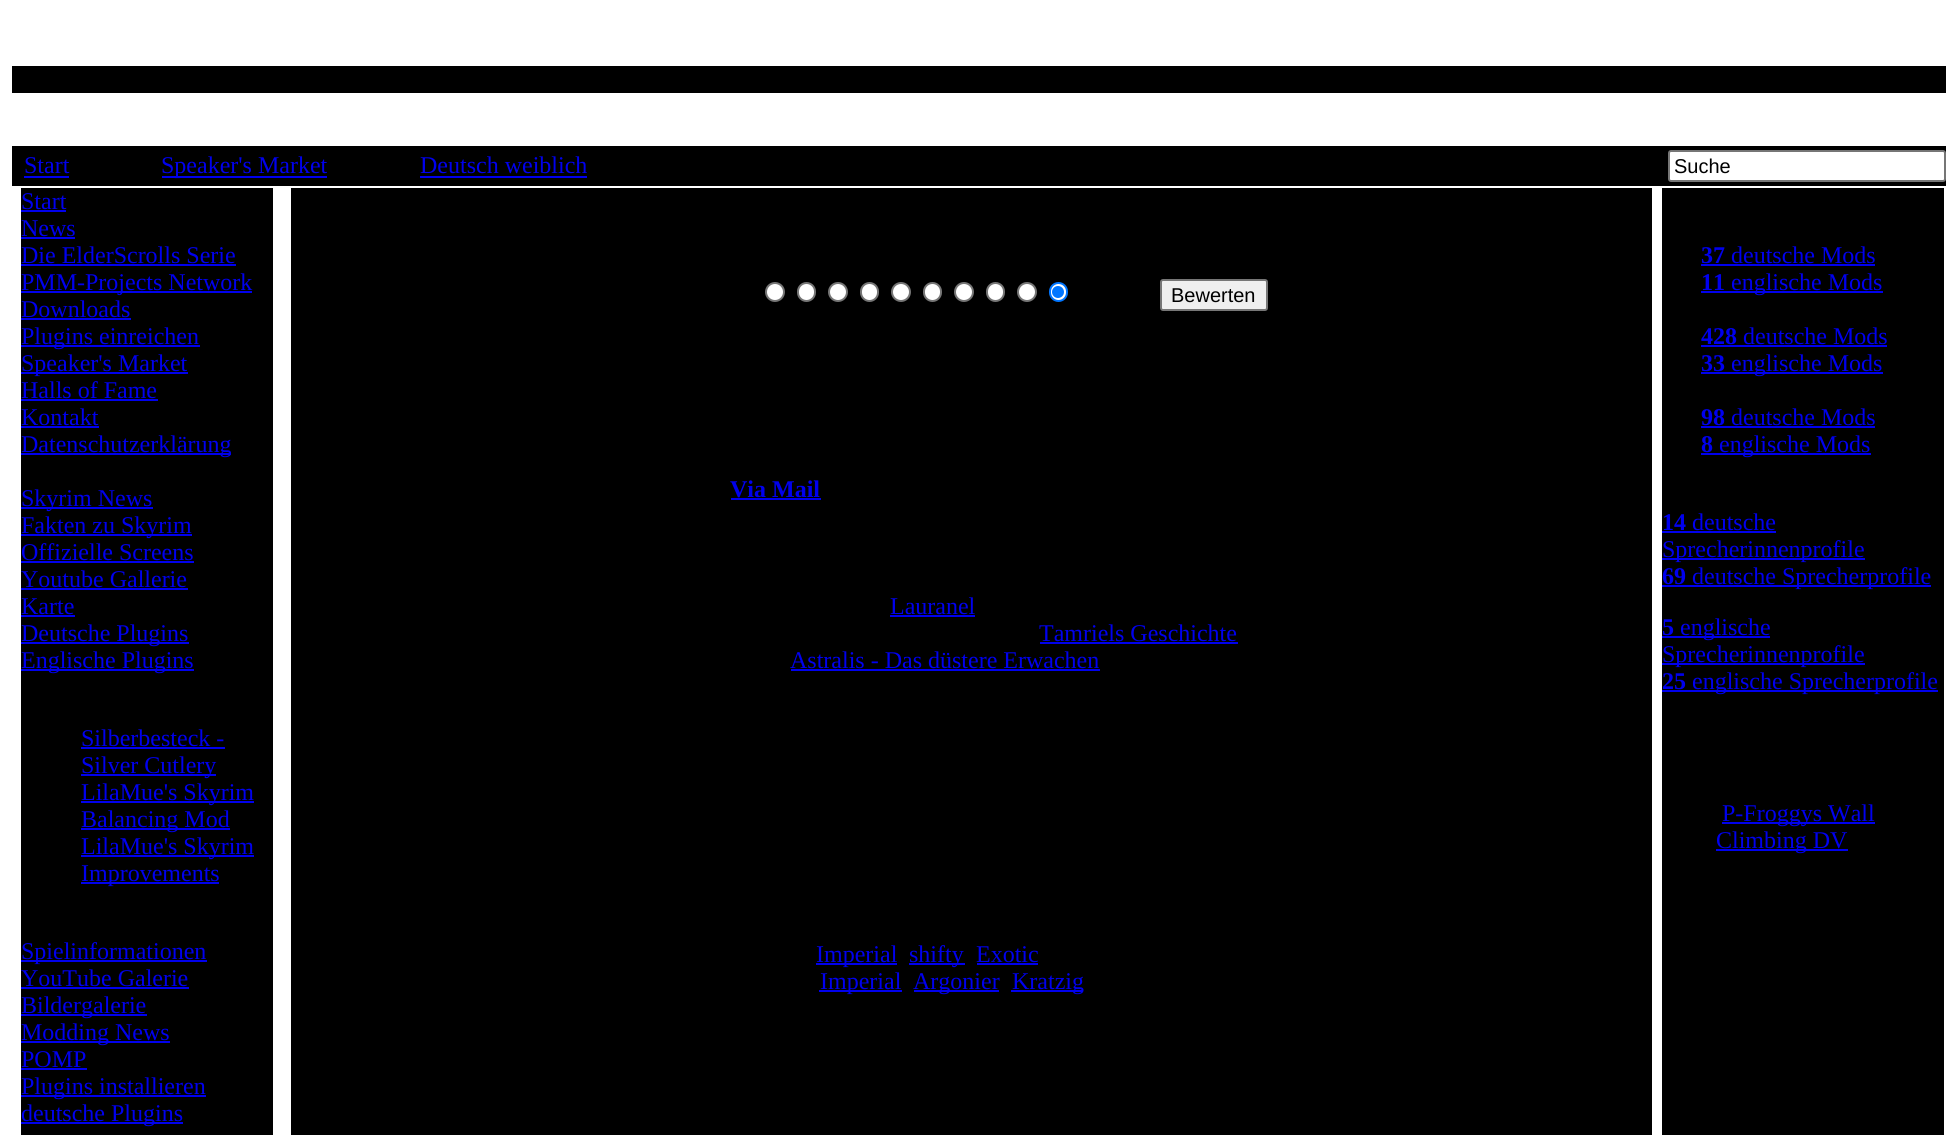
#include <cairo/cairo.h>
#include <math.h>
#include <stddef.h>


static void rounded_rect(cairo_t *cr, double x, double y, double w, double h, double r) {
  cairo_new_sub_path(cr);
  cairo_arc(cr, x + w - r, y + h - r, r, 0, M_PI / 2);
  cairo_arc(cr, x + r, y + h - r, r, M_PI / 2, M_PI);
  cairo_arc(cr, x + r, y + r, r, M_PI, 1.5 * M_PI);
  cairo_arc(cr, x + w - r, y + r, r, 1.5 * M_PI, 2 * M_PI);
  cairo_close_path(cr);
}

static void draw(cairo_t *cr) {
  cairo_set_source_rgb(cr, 1, 1, 1);
  cairo_paint(cr);
  cairo_set_source_rgb(cr, 0, 0, 0);
  cairo_rectangle(cr, 12, 66, 1934, 27);
  cairo_fill(cr);
  cairo_rectangle(cr, 12, 146, 1934, 40);
  cairo_fill(cr);
  cairo_set_source_rgb(cr, 0, 0, 238 / 255.0);
  cairo_rectangle(cr, 24, 176, 45, 2);
  cairo_fill(cr);
  cairo_rectangle(cr, 162, 176, 165, 2);
  cairo_fill(cr);
  cairo_rectangle(cr, 420, 176, 167, 2);
  cairo_fill(cr);
  cairo_set_source_rgb(cr, 1, 1, 1);
  rounded_rect(cr, 1669, 151, 276, 30, 2);
  cairo_fill_preserve(cr);
  cairo_set_source_rgb(cr, 118 / 255.0, 118 / 255.0, 118 / 255.0);
  cairo_stroke(cr);
  cairo_set_source_rgb(cr, 0, 0, 0);
  cairo_rectangle(cr, 21, 188, 252, 947);
  cairo_fill(cr);
  cairo_set_source_rgb(cr, 0, 0, 238 / 255.0);
  cairo_rectangle(cr, 21, 210, 45, 2);
  cairo_fill(cr);
  cairo_rectangle(cr, 21, 237, 54, 2);
  cairo_fill(cr);
  cairo_rectangle(cr, 21, 264, 215, 2);
  cairo_fill(cr);
  cairo_rectangle(cr, 21, 291, 231, 2);
  cairo_fill(cr);
  cairo_rectangle(cr, 21, 318, 110, 2);
  cairo_fill(cr);
  cairo_rectangle(cr, 21, 345, 179, 2);
  cairo_fill(cr);
  cairo_rectangle(cr, 21, 372, 167, 2);
  cairo_fill(cr);
  cairo_rectangle(cr, 21, 399, 137, 2);
  cairo_fill(cr);
  cairo_rectangle(cr, 21, 426, 78, 2);
  cairo_fill(cr);
  cairo_rectangle(cr, 21, 453, 210, 2);
  cairo_fill(cr);
  cairo_rectangle(cr, 21, 507, 132, 2);
  cairo_fill(cr);
  cairo_rectangle(cr, 21, 534, 171, 2);
  cairo_fill(cr);
  cairo_rectangle(cr, 21, 561, 173, 2);
  cairo_fill(cr);
  cairo_rectangle(cr, 21, 588, 167, 2);
  cairo_fill(cr);
  cairo_rectangle(cr, 21, 615, 54, 2);
  cairo_fill(cr);
  cairo_rectangle(cr, 21, 642, 168, 2);
  cairo_fill(cr);
  cairo_rectangle(cr, 21, 669, 173, 2);
  cairo_fill(cr);
  cairo_rectangle(cr, 81, 747, 144, 2);
  cairo_fill(cr);
  cairo_rectangle(cr, 81, 774, 135, 2);
  cairo_fill(cr);
  cairo_rectangle(cr, 81, 801, 173, 2);
  cairo_fill(cr);
  cairo_rectangle(cr, 81, 828, 149, 2);
  cairo_fill(cr);
  cairo_rectangle(cr, 81, 855, 173, 2);
  cairo_fill(cr);
  cairo_rectangle(cr, 81, 882, 138, 2);
  cairo_fill(cr);
  cairo_rectangle(cr, 21, 960, 186, 2);
  cairo_fill(cr);
  cairo_rectangle(cr, 21, 987, 168, 2);
  cairo_fill(cr);
  cairo_rectangle(cr, 21, 1014, 126, 2);
  cairo_fill(cr);
  cairo_rectangle(cr, 21, 1041, 149, 2);
  cairo_fill(cr);
  cairo_rectangle(cr, 21, 1068, 66, 2);
  cairo_fill(cr);
  cairo_rectangle(cr, 21, 1095, 185, 2);
  cairo_fill(cr);
  cairo_rectangle(cr, 21, 1122, 162, 2);
  cairo_fill(cr);
  cairo_set_source_rgb(cr, 0, 0, 0);
  cairo_rectangle(cr, 291, 188, 1361, 947);
  cairo_fill(cr);
  cairo_set_source_rgb(cr, 1, 1, 1);
  cairo_arc(cr, 775, 292, 9, 0, 2 * M_PI);
  cairo_fill_preserve(cr);
  cairo_set_source_rgb(cr, 118 / 255.0, 118 / 255.0, 118 / 255.0);
  cairo_stroke(cr);
  cairo_set_source_rgb(cr, 1, 1, 1);
  rounded_rect(cr, 798, 283, 17, 18, 8.5);
  cairo_fill_preserve(cr);
  cairo_set_source_rgb(cr, 118 / 255.0, 118 / 255.0, 118 / 255.0);
  cairo_stroke(cr);
  cairo_set_source_rgb(cr, 1, 1, 1);
  cairo_arc(cr, 838, 292, 9, 0, 2 * M_PI);
  cairo_fill_preserve(cr);
  cairo_set_source_rgb(cr, 118 / 255.0, 118 / 255.0, 118 / 255.0);
  cairo_stroke(cr);
  cairo_set_source_rgb(cr, 1, 1, 1);
  rounded_rect(cr, 861, 283, 17, 18, 8.5);
  cairo_fill_preserve(cr);
  cairo_set_source_rgb(cr, 118 / 255.0, 118 / 255.0, 118 / 255.0);
  cairo_stroke(cr);
  cairo_set_source_rgb(cr, 1, 1, 1);
  cairo_arc(cr, 901, 292, 9, 0, 2 * M_PI);
  cairo_fill_preserve(cr);
  cairo_set_source_rgb(cr, 118 / 255.0, 118 / 255.0, 118 / 255.0);
  cairo_stroke(cr);
  cairo_set_source_rgb(cr, 1, 1, 1);
  rounded_rect(cr, 924, 283, 17, 18, 8.5);
  cairo_fill_preserve(cr);
  cairo_set_source_rgb(cr, 118 / 255.0, 118 / 255.0, 118 / 255.0);
  cairo_stroke(cr);
  cairo_set_source_rgb(cr, 1, 1, 1);
  cairo_arc(cr, 964, 292, 9, 0, 2 * M_PI);
  cairo_fill_preserve(cr);
  cairo_set_source_rgb(cr, 118 / 255.0, 118 / 255.0, 118 / 255.0);
  cairo_stroke(cr);
  cairo_set_source_rgb(cr, 1, 1, 1);
  rounded_rect(cr, 987, 283, 17, 18, 8.5);
  cairo_fill_preserve(cr);
  cairo_set_source_rgb(cr, 118 / 255.0, 118 / 255.0, 118 / 255.0);
  cairo_stroke(cr);
  cairo_set_source_rgb(cr, 1, 1, 1);
  cairo_arc(cr, 1027, 292, 9, 0, 2 * M_PI);
  cairo_fill_preserve(cr);
  cairo_set_source_rgb(cr, 118 / 255.0, 118 / 255.0, 118 / 255.0);
  cairo_stroke(cr);
  cairo_set_source_rgb(cr, 1, 1, 1);
  rounded_rect(cr, 1050, 283, 17, 18, 8.5);
  cairo_fill_preserve(cr);
  cairo_set_source_rgb(cr, 0, 117 / 255.0, 1);
  cairo_stroke(cr);
  cairo_arc(cr, 1058, 292, 6, 0, 2 * M_PI);
  cairo_fill(cr);
  cairo_set_source_rgb(cr, 239 / 255.0, 239 / 255.0, 239 / 255.0);
  rounded_rect(cr, 1161, 280, 106, 30, 2);
  cairo_fill_preserve(cr);
  cairo_set_source_rgb(cr, 118 / 255.0, 118 / 255.0, 118 / 255.0);
  cairo_stroke(cr);
  cairo_set_source_rgb(cr, 0, 0, 238 / 255.0);
  cairo_rectangle(cr, 731, 498, 90, 2);
  cairo_fill(cr);
  cairo_rectangle(cr, 890, 615, 85, 2);
  cairo_fill(cr);
  cairo_rectangle(cr, 1040, 642, 198, 2);
  cairo_fill(cr);
  cairo_rectangle(cr, 791, 669, 309, 2);
  cairo_fill(cr);
  cairo_rectangle(cr, 816, 963, 81, 2);
  cairo_fill(cr);
  cairo_rectangle(cr, 909, 963, 56, 2);
  cairo_fill(cr);
  cairo_rectangle(cr, 977, 963, 61, 2);
  cairo_fill(cr);
  cairo_rectangle(cr, 819, 990, 83, 2);
  cairo_fill(cr);
  cairo_rectangle(cr, 914, 990, 85, 2);
  cairo_fill(cr);
  cairo_rectangle(cr, 1011, 990, 72, 2);
  cairo_fill(cr);
  cairo_set_source_rgb(cr, 0, 0, 0);
  cairo_rectangle(cr, 1662, 188, 282, 947);
  cairo_fill(cr);
  cairo_set_source_rgb(cr, 0, 0, 238 / 255.0);
  cairo_rectangle(cr, 1701, 264, 174, 2);
  cairo_fill(cr);
  cairo_rectangle(cr, 1701, 291, 182, 2);
  cairo_fill(cr);
  cairo_rectangle(cr, 1701, 345, 186, 2);
  cairo_fill(cr);
  cairo_rectangle(cr, 1701, 372, 182, 2);
  cairo_fill(cr);
  cairo_rectangle(cr, 1701, 426, 174, 2);
  cairo_fill(cr);
  cairo_rectangle(cr, 1701, 453, 170, 2);
  cairo_fill(cr);
  cairo_rectangle(cr, 1662, 531, 114, 2);
  cairo_fill(cr);
  cairo_rectangle(cr, 1662, 558, 203, 2);
  cairo_fill(cr);
  cairo_rectangle(cr, 1662, 585, 269, 2);
  cairo_fill(cr);
  cairo_rectangle(cr, 1662, 636, 108, 2);
  cairo_fill(cr);
  cairo_rectangle(cr, 1662, 663, 203, 2);
  cairo_fill(cr);
  cairo_rectangle(cr, 1662, 690, 276, 2);
  cairo_fill(cr);
  cairo_rectangle(cr, 1722, 822, 153, 2);
  cairo_fill(cr);
  cairo_rectangle(cr, 1716, 849, 132, 2);
  cairo_fill(cr);
  cairo_select_font_face(cr, "Liberation Serif", CAIRO_FONT_SLANT_NORMAL, CAIRO_FONT_WEIGHT_NORMAL);
  cairo_set_font_size(cr, 24);
  cairo_move_to(cr, 24, 173);
  cairo_show_text(cr, "Start");
  cairo_move_to(cr, 161, 173);
  cairo_show_text(cr, "Speaker's Market");
  cairo_move_to(cr, 420, 173);
  cairo_show_text(cr, "Deutsch weiblich");
  cairo_select_font_face(cr, "Liberation Sans", CAIRO_FONT_SLANT_NORMAL, CAIRO_FONT_WEIGHT_NORMAL);
  cairo_set_font_size(cr, 20);
  cairo_set_source_rgb(cr, 0, 0, 0);
  cairo_move_to(cr, 1674, 173);
  cairo_show_text(cr, "Suche");
  cairo_select_font_face(cr, "Liberation Serif", CAIRO_FONT_SLANT_NORMAL, CAIRO_FONT_WEIGHT_NORMAL);
  cairo_set_font_size(cr, 24);
  cairo_set_source_rgb(cr, 0, 0, 238 / 255.0);
  cairo_move_to(cr, 21, 209);
  cairo_show_text(cr, "Start");
  cairo_move_to(cr, 21, 236);
  cairo_show_text(cr, "News");
  cairo_move_to(cr, 21, 263);
  cairo_show_text(cr, "Die ElderScrolls Serie");
  cairo_move_to(cr, 21, 290);
  cairo_show_text(cr, "PMM-Projects Network");
  cairo_move_to(cr, 21, 317);
  cairo_show_text(cr, "Downloads");
  cairo_move_to(cr, 21, 344);
  cairo_show_text(cr, "Plugins einreichen");
  cairo_move_to(cr, 21, 371);
  cairo_show_text(cr, "Speaker's Market");
  cairo_move_to(cr, 21, 398);
  cairo_show_text(cr, "Halls of Fame");
  cairo_move_to(cr, 21, 425);
  cairo_show_text(cr, "Kontakt");
  cairo_move_to(cr, 21, 452);
  cairo_show_text(cr, "Datenschutzerklärung");
  cairo_move_to(cr, 21, 506);
  cairo_show_text(cr, "Skyrim News");
  cairo_move_to(cr, 21, 533);
  cairo_show_text(cr, "Fakten zu Skyrim");
  cairo_move_to(cr, 21, 560);
  cairo_show_text(cr, "Offizielle Screens");
  cairo_move_to(cr, 21, 587);
  cairo_show_text(cr, "Youtube Gallerie");
  cairo_move_to(cr, 21, 614);
  cairo_show_text(cr, "Karte");
  cairo_move_to(cr, 21, 641);
  cairo_show_text(cr, "Deutsche Plugins");
  cairo_move_to(cr, 21, 668);
  cairo_show_text(cr, "Englische Plugins");
  cairo_move_to(cr, 81, 746);
  cairo_show_text(cr, "Silberbesteck -");
  cairo_move_to(cr, 81, 773);
  cairo_show_text(cr, "Silver Cutlery");
  cairo_move_to(cr, 81, 800);
  cairo_show_text(cr, "LilaMue's Skyrim");
  cairo_move_to(cr, 81, 827);
  cairo_show_text(cr, "Balancing Mod");
  cairo_move_to(cr, 81, 854);
  cairo_show_text(cr, "LilaMue's Skyrim");
  cairo_move_to(cr, 81, 881);
  cairo_show_text(cr, "Improvements");
  cairo_move_to(cr, 21, 959);
  cairo_show_text(cr, "Spielinformationen");
  cairo_move_to(cr, 21, 986);
  cairo_show_text(cr, "YouTube Galerie");
  cairo_move_to(cr, 21, 1013);
  cairo_show_text(cr, "Bildergalerie");
  cairo_move_to(cr, 21, 1040);
  cairo_show_text(cr, "Modding News");
  cairo_move_to(cr, 21, 1067);
  cairo_show_text(cr, "POMP");
  cairo_move_to(cr, 21, 1094);
  cairo_show_text(cr, "Plugins installieren");
  cairo_move_to(cr, 21, 1121);
  cairo_show_text(cr, "deutsche Plugins");
  cairo_select_font_face(cr, "Liberation Sans", CAIRO_FONT_SLANT_NORMAL, CAIRO_FONT_WEIGHT_NORMAL);
  cairo_set_font_size(cr, 20);
  cairo_set_source_rgb(cr, 0, 0, 0);
  cairo_move_to(cr, 1171, 302);
  cairo_show_text(cr, "Bewerten");
  cairo_select_font_face(cr, "Liberation Serif", CAIRO_FONT_SLANT_NORMAL, CAIRO_FONT_WEIGHT_BOLD);
  cairo_set_font_size(cr, 24);
  cairo_set_source_rgb(cr, 0, 0, 238 / 255.0);
  cairo_move_to(cr, 730, 497);
  cairo_show_text(cr, "Via Mail");
  cairo_select_font_face(cr, "Liberation Serif", CAIRO_FONT_SLANT_NORMAL, CAIRO_FONT_WEIGHT_NORMAL);
  cairo_move_to(cr, 890, 614);
  cairo_show_text(cr, "Lauranel");
  cairo_move_to(cr, 1039, 641);
  cairo_show_text(cr, "Tamriels Geschichte");
  cairo_move_to(cr, 790, 668);
  cairo_show_text(cr, "Astralis - Das düstere Erwachen");
  cairo_move_to(cr, 816, 962);
  cairo_show_text(cr, "Imperial");
  cairo_move_to(cr, 909, 962);
  cairo_show_text(cr, "shifty");
  cairo_move_to(cr, 976, 962);
  cairo_show_text(cr, "Exotic");
  cairo_move_to(cr, 820, 989);
  cairo_show_text(cr, "Imperial");
  cairo_move_to(cr, 913, 989);
  cairo_show_text(cr, "Argonier");
  cairo_move_to(cr, 1012, 989);
  cairo_show_text(cr, "Kratzig");
  cairo_select_font_face(cr, "Liberation Serif", CAIRO_FONT_SLANT_NORMAL, CAIRO_FONT_WEIGHT_BOLD);
  cairo_move_to(cr, 1701, 263);
  cairo_show_text(cr, "37");
  cairo_select_font_face(cr, "Liberation Serif", CAIRO_FONT_SLANT_NORMAL, CAIRO_FONT_WEIGHT_NORMAL);
  cairo_move_to(cr, 1731, 263);
  cairo_show_text(cr, "deutsche Mods");
  cairo_select_font_face(cr, "Liberation Serif", CAIRO_FONT_SLANT_NORMAL, CAIRO_FONT_WEIGHT_BOLD);
  cairo_move_to(cr, 1701, 290);
  cairo_show_text(cr, "11");
  cairo_select_font_face(cr, "Liberation Serif", CAIRO_FONT_SLANT_NORMAL, CAIRO_FONT_WEIGHT_NORMAL);
  cairo_move_to(cr, 1731, 290);
  cairo_show_text(cr, "englische Mods");
  cairo_select_font_face(cr, "Liberation Serif", CAIRO_FONT_SLANT_NORMAL, CAIRO_FONT_WEIGHT_BOLD);
  cairo_move_to(cr, 1701, 344);
  cairo_show_text(cr, "428");
  cairo_select_font_face(cr, "Liberation Serif", CAIRO_FONT_SLANT_NORMAL, CAIRO_FONT_WEIGHT_NORMAL);
  cairo_move_to(cr, 1743, 344);
  cairo_show_text(cr, "deutsche Mods");
  cairo_select_font_face(cr, "Liberation Serif", CAIRO_FONT_SLANT_NORMAL, CAIRO_FONT_WEIGHT_BOLD);
  cairo_move_to(cr, 1701, 371);
  cairo_show_text(cr, "33");
  cairo_select_font_face(cr, "Liberation Serif", CAIRO_FONT_SLANT_NORMAL, CAIRO_FONT_WEIGHT_NORMAL);
  cairo_move_to(cr, 1731, 371);
  cairo_show_text(cr, "englische Mods");
  cairo_select_font_face(cr, "Liberation Serif", CAIRO_FONT_SLANT_NORMAL, CAIRO_FONT_WEIGHT_BOLD);
  cairo_move_to(cr, 1701, 425);
  cairo_show_text(cr, "98");
  cairo_select_font_face(cr, "Liberation Serif", CAIRO_FONT_SLANT_NORMAL, CAIRO_FONT_WEIGHT_NORMAL);
  cairo_move_to(cr, 1731, 425);
  cairo_show_text(cr, "deutsche Mods");
  cairo_select_font_face(cr, "Liberation Serif", CAIRO_FONT_SLANT_NORMAL, CAIRO_FONT_WEIGHT_BOLD);
  cairo_move_to(cr, 1701, 452);
  cairo_show_text(cr, "8");
  cairo_select_font_face(cr, "Liberation Serif", CAIRO_FONT_SLANT_NORMAL, CAIRO_FONT_WEIGHT_NORMAL);
  cairo_move_to(cr, 1719, 452);
  cairo_show_text(cr, "englische Mods");
  cairo_select_font_face(cr, "Liberation Serif", CAIRO_FONT_SLANT_NORMAL, CAIRO_FONT_WEIGHT_BOLD);
  cairo_move_to(cr, 1662, 530);
  cairo_show_text(cr, "14");
  cairo_select_font_face(cr, "Liberation Serif", CAIRO_FONT_SLANT_NORMAL, CAIRO_FONT_WEIGHT_NORMAL);
  cairo_move_to(cr, 1692, 530);
  cairo_show_text(cr, "deutsche");
  cairo_move_to(cr, 1662, 557);
  cairo_show_text(cr, "Sprecherinnenprofile");
  cairo_select_font_face(cr, "Liberation Serif", CAIRO_FONT_SLANT_NORMAL, CAIRO_FONT_WEIGHT_BOLD);
  cairo_move_to(cr, 1662, 584);
  cairo_show_text(cr, "69");
  cairo_select_font_face(cr, "Liberation Serif", CAIRO_FONT_SLANT_NORMAL, CAIRO_FONT_WEIGHT_NORMAL);
  cairo_move_to(cr, 1692, 584);
  cairo_show_text(cr, "deutsche Sprecherprofile");
  cairo_select_font_face(cr, "Liberation Serif", CAIRO_FONT_SLANT_NORMAL, CAIRO_FONT_WEIGHT_BOLD);
  cairo_move_to(cr, 1662, 635);
  cairo_show_text(cr, "5");
  cairo_select_font_face(cr, "Liberation Serif", CAIRO_FONT_SLANT_NORMAL, CAIRO_FONT_WEIGHT_NORMAL);
  cairo_move_to(cr, 1680, 635);
  cairo_show_text(cr, "englische");
  cairo_move_to(cr, 1662, 662);
  cairo_show_text(cr, "Sprecherinnenprofile");
  cairo_select_font_face(cr, "Liberation Serif", CAIRO_FONT_SLANT_NORMAL, CAIRO_FONT_WEIGHT_BOLD);
  cairo_move_to(cr, 1662, 689);
  cairo_show_text(cr, "25");
  cairo_select_font_face(cr, "Liberation Serif", CAIRO_FONT_SLANT_NORMAL, CAIRO_FONT_WEIGHT_NORMAL);
  cairo_move_to(cr, 1692, 689);
  cairo_show_text(cr, "englische Sprecherprofile");
  cairo_move_to(cr, 1722, 821);
  cairo_show_text(cr, "P-Froggys Wall");
  cairo_move_to(cr, 1716, 848);
  cairo_show_text(cr, "Climbing DV");
}

int main(void) {
  cairo_surface_t *surface = cairo_image_surface_create(CAIRO_FORMAT_RGB24, 1957, 1135);
  cairo_t *cr = cairo_create(surface);
  cairo_font_options_t *options = cairo_font_options_create();
  cairo_font_options_set_hint_metrics(options, CAIRO_HINT_METRICS_OFF);
  cairo_font_options_set_hint_style(options, CAIRO_HINT_STYLE_NONE);
  cairo_set_font_options(cr, options);
  cairo_set_miter_limit(cr, 4);
  draw(cr);
  cairo_surface_write_to_png(surface, "out.png");
  cairo_font_options_destroy(options);
  cairo_destroy(cr);
  cairo_surface_destroy(surface);
  return 0;
}
